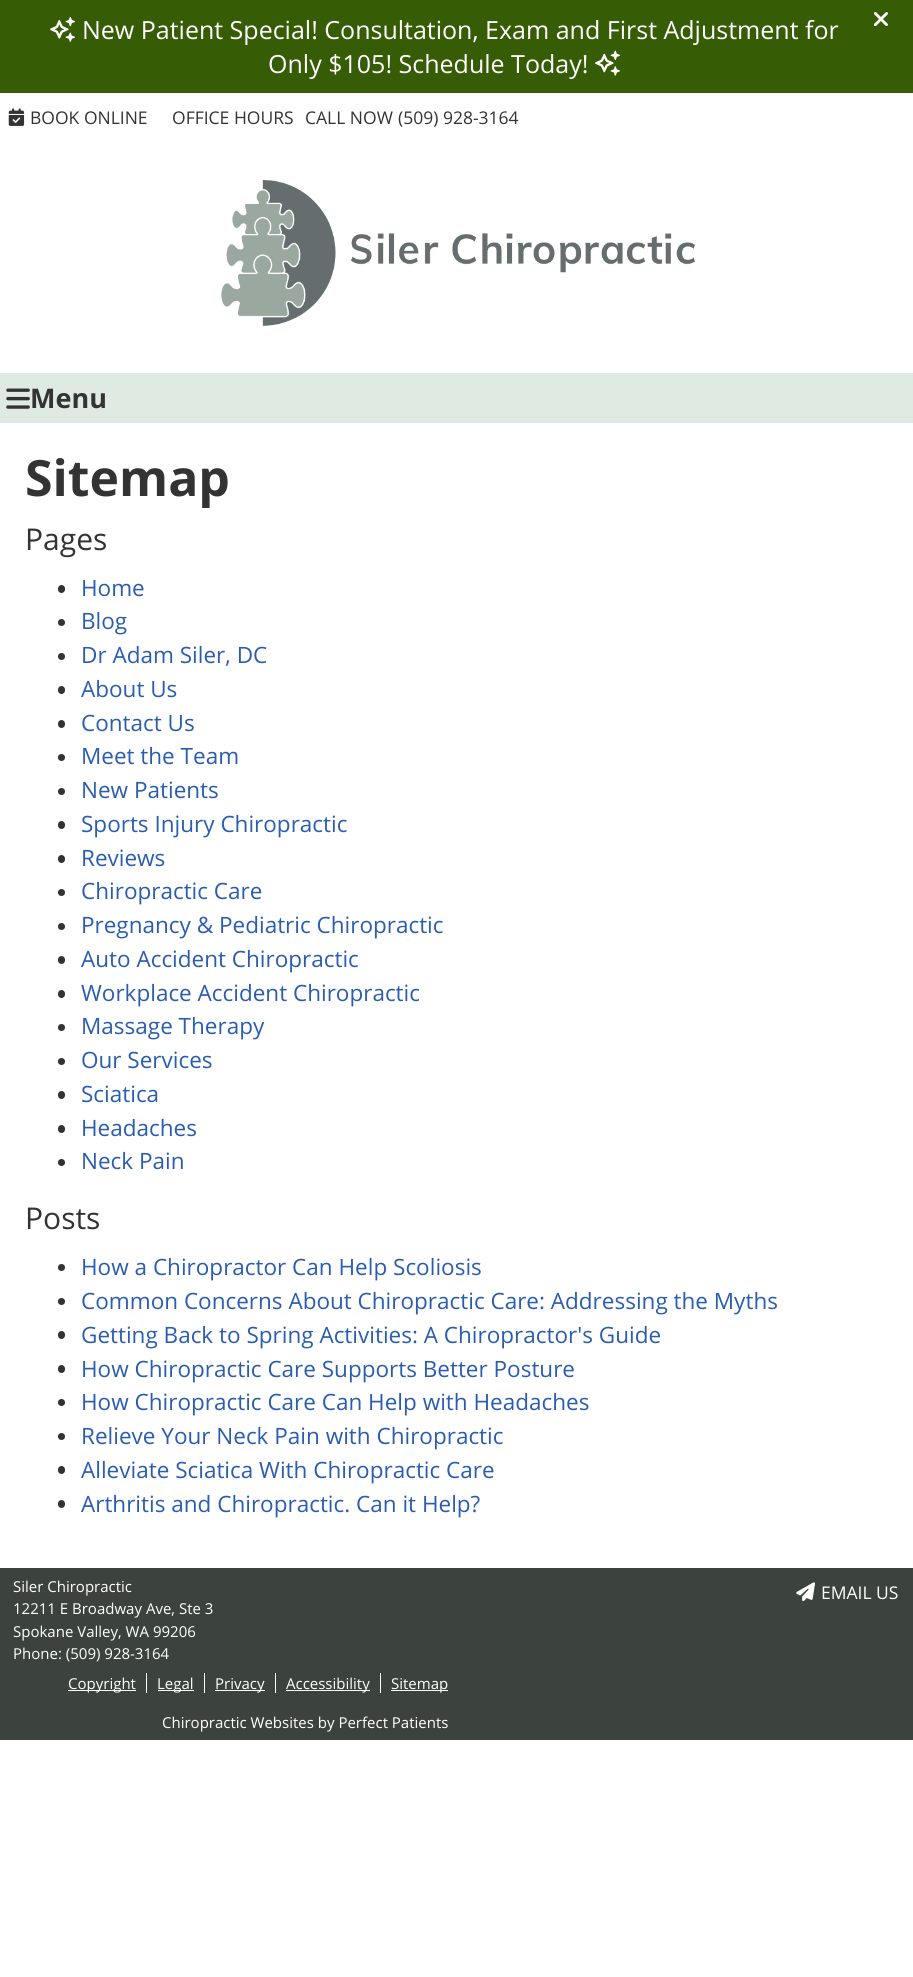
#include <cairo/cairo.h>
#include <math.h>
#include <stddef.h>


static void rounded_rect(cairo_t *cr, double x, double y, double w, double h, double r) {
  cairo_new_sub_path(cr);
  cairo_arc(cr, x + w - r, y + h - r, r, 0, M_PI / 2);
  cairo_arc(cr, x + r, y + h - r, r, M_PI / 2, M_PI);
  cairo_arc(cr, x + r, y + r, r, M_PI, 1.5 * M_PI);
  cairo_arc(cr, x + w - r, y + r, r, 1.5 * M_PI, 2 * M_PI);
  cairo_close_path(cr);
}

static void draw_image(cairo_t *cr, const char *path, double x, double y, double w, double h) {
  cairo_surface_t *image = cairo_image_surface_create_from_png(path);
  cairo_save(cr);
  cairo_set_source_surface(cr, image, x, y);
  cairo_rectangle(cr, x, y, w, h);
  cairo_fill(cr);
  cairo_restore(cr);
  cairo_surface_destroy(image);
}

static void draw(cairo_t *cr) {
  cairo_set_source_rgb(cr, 1, 1, 1);
  cairo_paint(cr);
  cairo_set_source_rgb(cr, 54 / 255.0, 92 / 255.0, 5 / 255.0);
  cairo_rectangle(cr, 0, 0, 913, 93);
  cairo_fill(cr);
  draw_image(cr, "images/1.png", 50, 16, 25, 26);
  draw_image(cr, "images/2.png", 873, 12, 15, 15);
  draw_image(cr, "images/3.png", 595, 50, 25, 26);
  draw_image(cr, "images/4.png", 8, 108, 17, 18);
  draw_image(cr, "images/5.png", 221, 180, 474, 146);
  cairo_set_source_rgb(cr, 222 / 255.0, 234 / 255.0, 226 / 255.0);
  cairo_rectangle(cr, 0, 373, 913, 50);
  cairo_fill(cr);
  draw_image(cr, "images/6.png", 6, 388, 24, 21);
  cairo_set_source_rgb(cr, 51 / 255.0, 51 / 255.0, 51 / 255.0);
  rounded_rect(cr, 58, 585, 7, 8, 3.5);
  cairo_fill(cr);
  cairo_arc(cr, 61.5, 622.5, 3.5, 0, 2 * M_PI);
  cairo_fill(cr);
  cairo_arc(cr, 61.5, 656.5, 3.5, 0, 2 * M_PI);
  cairo_fill(cr);
  rounded_rect(cr, 58, 686, 7, 8, 3.5);
  cairo_fill(cr);
  rounded_rect(cr, 58, 720, 7, 8, 3.5);
  cairo_fill(cr);
  cairo_arc(cr, 61.5, 757.5, 3.5, 0, 2 * M_PI);
  cairo_fill(cr);
  cairo_arc(cr, 61.5, 791.5, 3.5, 0, 2 * M_PI);
  cairo_fill(cr);
  rounded_rect(cr, 58, 821, 7, 8, 3.5);
  cairo_fill(cr);
  rounded_rect(cr, 58, 855, 7, 8, 3.5);
  cairo_fill(cr);
  cairo_arc(cr, 61.5, 892.5, 3.5, 0, 2 * M_PI);
  cairo_fill(cr);
  cairo_arc(cr, 61.5, 926.5, 3.5, 0, 2 * M_PI);
  cairo_fill(cr);
  rounded_rect(cr, 58, 956, 7, 8, 3.5);
  cairo_fill(cr);
  rounded_rect(cr, 58, 990, 7, 8, 3.5);
  cairo_fill(cr);
  cairo_arc(cr, 61.5, 1027.5, 3.5, 0, 2 * M_PI);
  cairo_fill(cr);
  cairo_arc(cr, 61.5, 1061.5, 3.5, 0, 2 * M_PI);
  cairo_fill(cr);
  rounded_rect(cr, 58, 1091, 7, 8, 3.5);
  cairo_fill(cr);
  rounded_rect(cr, 58, 1125, 7, 8, 3.5);
  cairo_fill(cr);
  cairo_arc(cr, 61.5, 1162.5, 3.5, 0, 2 * M_PI);
  cairo_fill(cr);
  cairo_arc(cr, 61.5, 1267.5, 3.5, 0, 2 * M_PI);
  cairo_fill(cr);
  cairo_arc(cr, 61.5, 1301.5, 3.5, 0, 2 * M_PI);
  cairo_fill(cr);
  rounded_rect(cr, 58, 1331, 7, 8, 3.5);
  cairo_fill(cr);
  rounded_rect(cr, 58, 1365, 7, 8, 3.5);
  cairo_fill(cr);
  cairo_arc(cr, 61.5, 1402.5, 3.5, 0, 2 * M_PI);
  cairo_fill(cr);
  cairo_arc(cr, 61.5, 1436.5, 3.5, 0, 2 * M_PI);
  cairo_fill(cr);
  rounded_rect(cr, 58, 1466, 7, 8, 3.5);
  cairo_fill(cr);
  rounded_rect(cr, 58, 1500, 7, 8, 3.5);
  cairo_fill(cr);
  cairo_set_source_rgb(cr, 60 / 255.0, 67 / 255.0, 62 / 255.0);
  cairo_rectangle(cr, 0, 1568, 913, 172);
  cairo_fill(cr);
  draw_image(cr, "images/7.png", 796, 1582, 19, 20);
  cairo_set_source_rgb(cr, 1, 1, 1);
  cairo_rectangle(cr, 146, 1673, 1, 20);
  cairo_fill(cr);
  cairo_rectangle(cr, 68, 1690, 68, 1);
  cairo_fill(cr);
  cairo_rectangle(cr, 204, 1673, 1, 20);
  cairo_fill(cr);
  cairo_rectangle(cr, 158, 1690, 36, 1);
  cairo_fill(cr);
  cairo_rectangle(cr, 275, 1673, 1, 20);
  cairo_fill(cr);
  cairo_rectangle(cr, 215, 1690, 50, 1);
  cairo_fill(cr);
  cairo_rectangle(cr, 380, 1673, 1, 20);
  cairo_fill(cr);
  cairo_rectangle(cr, 286, 1690, 84, 1);
  cairo_fill(cr);
  cairo_rectangle(cr, 391, 1690, 57, 1);
  cairo_fill(cr);
  cairo_select_font_face(cr, "Open Sans", CAIRO_FONT_SLANT_NORMAL, CAIRO_FONT_WEIGHT_NORMAL);
  cairo_set_font_size(cr, 25);
  cairo_move_to(cr, 82, 39);
  cairo_show_text(cr, "New Patient Special! Consultation, Exam and First Adjustment for");
  cairo_move_to(cr, 268, 73);
  cairo_show_text(cr, "Only $105! Schedule Today!");
  cairo_set_font_size(cr, 17.5);
  cairo_set_source_rgb(cr, 51 / 255.0, 51 / 255.0, 51 / 255.0);
  cairo_move_to(cr, 30, 124);
  cairo_show_text(cr, "BOOK ONLINE");
  cairo_move_to(cr, 172, 124);
  cairo_show_text(cr, "OFFICE HOURS");
  cairo_move_to(cr, 305, 124);
  cairo_show_text(cr, "CALL NOW");
  cairo_move_to(cr, 398, 124);
  cairo_show_text(cr, "(509) 928-3164");
  cairo_select_font_face(cr, "Open Sans", CAIRO_FONT_SLANT_NORMAL, CAIRO_FONT_WEIGHT_BOLD);
  cairo_set_font_size(cr, 27);
  cairo_move_to(cr, 30, 408);
  cairo_show_text(cr, "Menu");
  cairo_set_font_size(cr, 50);
  cairo_move_to(cr, 25, 496);
  cairo_show_text(cr, "Sitemap");
  cairo_select_font_face(cr, "Open Sans", CAIRO_FONT_SLANT_NORMAL, CAIRO_FONT_WEIGHT_NORMAL);
  cairo_set_font_size(cr, 30);
  cairo_move_to(cr, 25, 550);
  cairo_show_text(cr, "Pages");
  cairo_set_font_size(cr, 22.5);
  cairo_set_source_rgb(cr, 42 / 255.0, 93 / 255.0, 176 / 255.0);
  cairo_move_to(cr, 81, 596);
  cairo_show_text(cr, "Home");
  cairo_move_to(cr, 81, 629);
  cairo_show_text(cr, "Blog");
  cairo_move_to(cr, 81, 663);
  cairo_show_text(cr, "Dr Adam Siler, DC");
  cairo_move_to(cr, 81, 697);
  cairo_show_text(cr, "About Us");
  cairo_move_to(cr, 81, 731);
  cairo_show_text(cr, "Contact Us");
  cairo_move_to(cr, 81, 764);
  cairo_show_text(cr, "Meet the Team");
  cairo_move_to(cr, 81, 798);
  cairo_show_text(cr, "New Patients");
  cairo_move_to(cr, 81, 832);
  cairo_show_text(cr, "Sports Injury Chiropractic");
  cairo_move_to(cr, 81, 866);
  cairo_show_text(cr, "Reviews");
  cairo_move_to(cr, 81, 899);
  cairo_show_text(cr, "Chiropractic Care");
  cairo_move_to(cr, 81, 933);
  cairo_show_text(cr, "Pregnancy & Pediatric Chiropractic");
  cairo_move_to(cr, 81, 967);
  cairo_show_text(cr, "Auto Accident Chiropractic");
  cairo_move_to(cr, 81, 1001);
  cairo_show_text(cr, "Workplace Accident Chiropractic");
  cairo_move_to(cr, 81, 1034);
  cairo_show_text(cr, "Massage Therapy");
  cairo_move_to(cr, 81, 1068);
  cairo_show_text(cr, "Our Services");
  cairo_move_to(cr, 81, 1102);
  cairo_show_text(cr, "Sciatica");
  cairo_move_to(cr, 81, 1136);
  cairo_show_text(cr, "Headaches");
  cairo_move_to(cr, 81, 1169);
  cairo_show_text(cr, "Neck Pain");
  cairo_set_font_size(cr, 30);
  cairo_set_source_rgb(cr, 51 / 255.0, 51 / 255.0, 51 / 255.0);
  cairo_move_to(cr, 25, 1229);
  cairo_show_text(cr, "Posts");
  cairo_set_font_size(cr, 22.5);
  cairo_set_source_rgb(cr, 42 / 255.0, 93 / 255.0, 176 / 255.0);
  cairo_move_to(cr, 81, 1275);
  cairo_show_text(cr, "How a Chiropractor Can Help Scoliosis");
  cairo_move_to(cr, 81, 1309);
  cairo_show_text(cr, "Common Concerns About Chiropractic Care: Addressing the Myths");
  cairo_move_to(cr, 81, 1343);
  cairo_show_text(cr, "Getting Back to Spring Activities: A Chiropractor's Guide");
  cairo_move_to(cr, 81, 1377);
  cairo_show_text(cr, "How Chiropractic Care Supports Better Posture");
  cairo_move_to(cr, 81, 1410);
  cairo_show_text(cr, "How Chiropractic Care Can Help with Headaches");
  cairo_move_to(cr, 81, 1444);
  cairo_show_text(cr, "Relieve Your Neck Pain with Chiropractic");
  cairo_move_to(cr, 81, 1478);
  cairo_show_text(cr, "Alleviate Sciatica With Chiropractic Care");
  cairo_move_to(cr, 81, 1512);
  cairo_show_text(cr, "Arthritis and Chiropractic. Can it Help?");
  cairo_set_font_size(cr, 15);
  cairo_set_source_rgb(cr, 1, 1, 1);
  cairo_move_to(cr, 13, 1592);
  cairo_show_text(cr, "Siler Chiropractic");
  cairo_move_to(cr, 13, 1614);
  cairo_show_text(cr, "12211 E Broadway Ave, Ste 3");
  cairo_move_to(cr, 13, 1637);
  cairo_show_text(cr, "Spokane Valley, WA 99206");
  cairo_move_to(cr, 13, 1659);
  cairo_show_text(cr, "Phone: (509) 928-3164");
  cairo_set_font_size(cr, 17.5);
  cairo_move_to(cr, 821, 1599);
  cairo_show_text(cr, "EMAIL US");
  cairo_set_font_size(cr, 15);
  cairo_move_to(cr, 68, 1689);
  cairo_show_text(cr, "Copyright");
  cairo_move_to(cr, 157, 1689);
  cairo_show_text(cr, "Legal");
  cairo_move_to(cr, 215, 1689);
  cairo_show_text(cr, "Privacy");
  cairo_move_to(cr, 286, 1689);
  cairo_show_text(cr, "Accessibility");
  cairo_move_to(cr, 391, 1689);
  cairo_show_text(cr, "Sitemap");
  cairo_move_to(cr, 162, 1728);
  cairo_show_text(cr, "Chiropractic Websites by Perfect Patients");
}

int main(void) {
  cairo_surface_t *surface = cairo_image_surface_create(CAIRO_FORMAT_RGB24, 913, 1977);
  cairo_t *cr = cairo_create(surface);
  cairo_font_options_t *options = cairo_font_options_create();
  cairo_font_options_set_hint_metrics(options, CAIRO_HINT_METRICS_OFF);
  cairo_font_options_set_hint_style(options, CAIRO_HINT_STYLE_NONE);
  cairo_set_font_options(cr, options);
  cairo_set_miter_limit(cr, 4);
  draw(cr);
  cairo_surface_write_to_png(surface, "out.png");
  cairo_font_options_destroy(options);
  cairo_destroy(cr);
  cairo_surface_destroy(surface);
  return 0;
}
